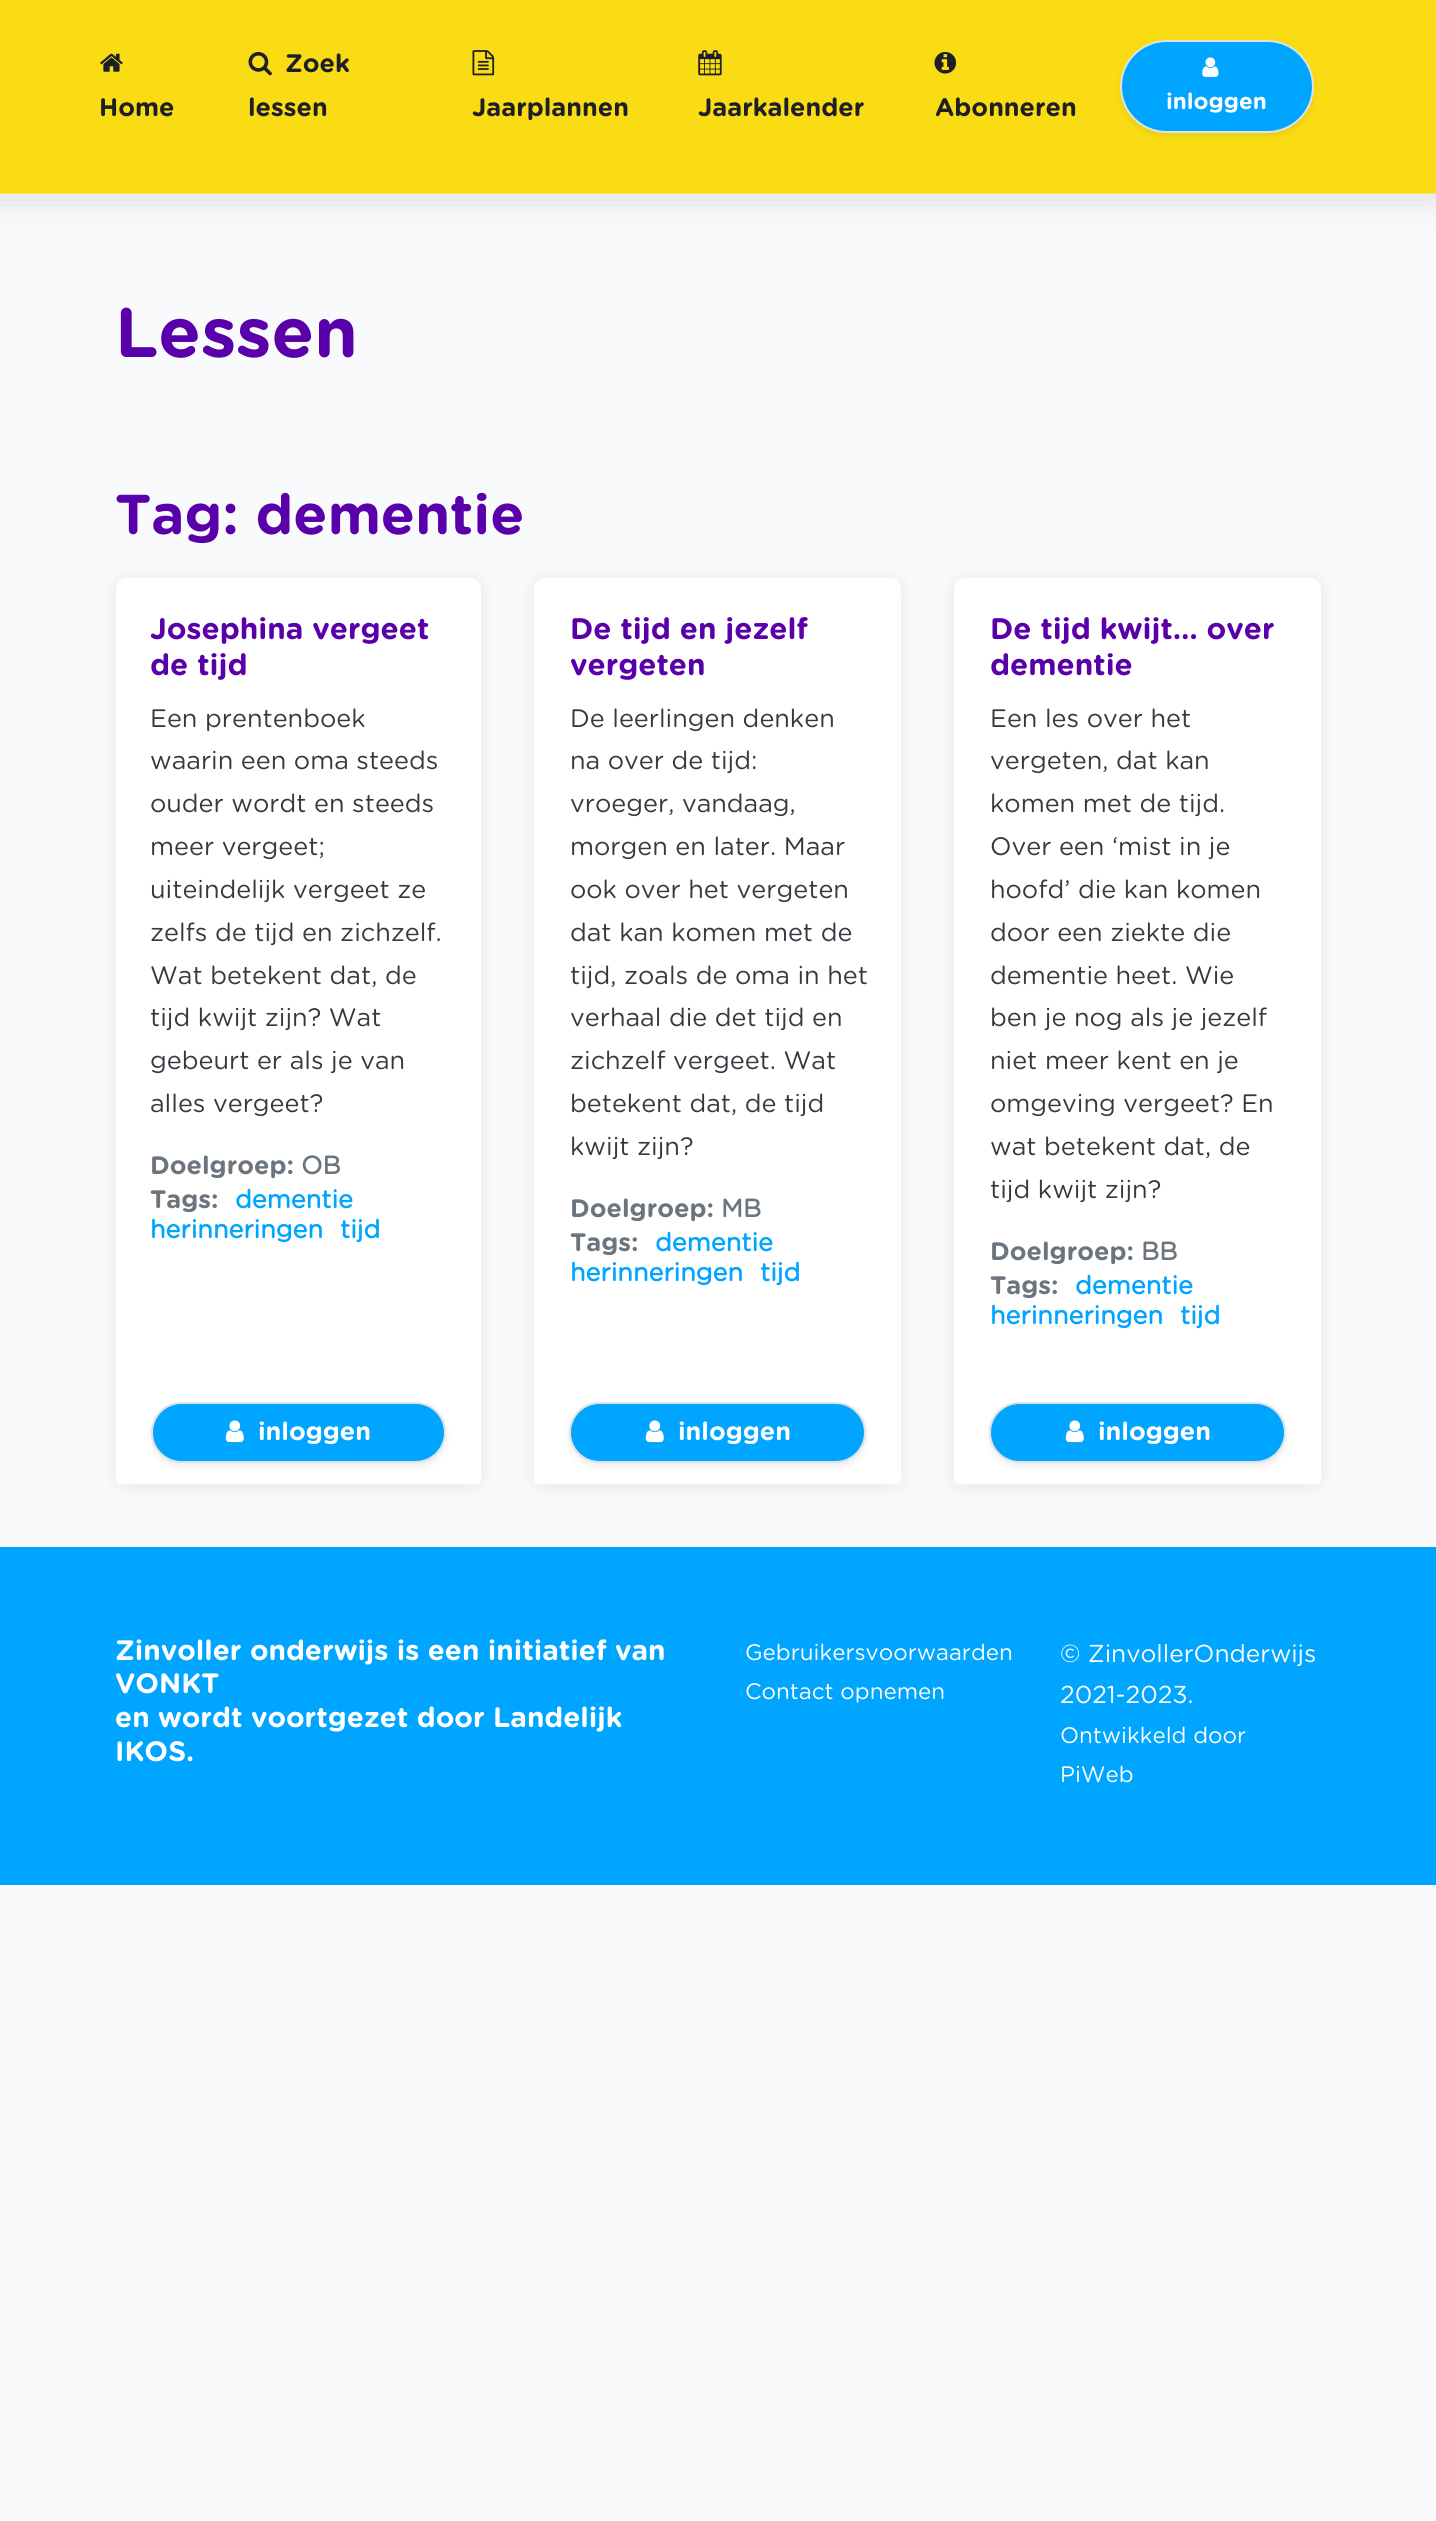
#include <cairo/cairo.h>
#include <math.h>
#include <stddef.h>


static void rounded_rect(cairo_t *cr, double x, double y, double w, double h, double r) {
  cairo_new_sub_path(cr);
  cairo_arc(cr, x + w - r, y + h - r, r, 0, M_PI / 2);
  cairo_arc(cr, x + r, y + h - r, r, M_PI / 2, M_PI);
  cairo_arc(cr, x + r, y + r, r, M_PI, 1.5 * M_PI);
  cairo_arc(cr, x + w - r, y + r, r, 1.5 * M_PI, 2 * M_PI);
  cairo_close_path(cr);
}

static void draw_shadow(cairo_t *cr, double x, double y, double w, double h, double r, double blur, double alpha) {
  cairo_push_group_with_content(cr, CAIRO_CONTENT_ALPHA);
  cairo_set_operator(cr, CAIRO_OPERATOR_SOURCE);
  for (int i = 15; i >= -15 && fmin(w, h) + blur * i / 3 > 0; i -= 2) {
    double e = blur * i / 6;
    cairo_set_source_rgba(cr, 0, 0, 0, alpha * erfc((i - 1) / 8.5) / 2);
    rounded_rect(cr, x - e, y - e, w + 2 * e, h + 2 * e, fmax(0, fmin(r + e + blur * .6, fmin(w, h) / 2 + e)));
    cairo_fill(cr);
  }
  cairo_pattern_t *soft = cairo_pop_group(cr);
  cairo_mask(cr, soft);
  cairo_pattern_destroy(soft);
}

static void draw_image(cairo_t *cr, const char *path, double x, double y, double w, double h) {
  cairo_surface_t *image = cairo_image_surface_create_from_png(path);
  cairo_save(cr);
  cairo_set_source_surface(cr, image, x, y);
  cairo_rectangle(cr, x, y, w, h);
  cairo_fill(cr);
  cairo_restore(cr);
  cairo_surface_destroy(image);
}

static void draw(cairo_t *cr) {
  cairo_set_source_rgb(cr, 249 / 255.0, 250 / 255.0, 252 / 255.0);
  cairo_paint(cr);
  cairo_set_source_rgb(cr, 0, 0, 0);
  draw_shadow(cr, -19, 0, 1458, 198, 0, 17.5, 0.13);
  cairo_set_source_rgb(cr, 250 / 255.0, 220 / 255.0, 20 / 255.0);
  cairo_rectangle(cr, 0, 0, 1436, 194);
  cairo_fill(cr);
  cairo_set_source_rgba(cr, 1, 1, 1, 0.3);
  cairo_rectangle(cr, 0, 193, 1436, 2);
  cairo_fill(cr);
  draw_image(cr, "images/1.png", 100, 53, 23, 19);
  draw_image(cr, "images/2.png", 248, 51, 24, 25);
  draw_image(cr, "images/3.png", 472, 50, 23, 26);
  draw_image(cr, "images/4.png", 698, 50, 24, 26);
  draw_image(cr, "images/5.png", 934, 51, 23, 23);
  cairo_set_source_rgb(cr, 0, 0, 0);
  draw_shadow(cr, 1120, 44, 194, 93, 46.5, 3.5, 0.07);
  cairo_set_source_rgb(cr, 0, 165 / 255.0, 1);
  rounded_rect(cr, 1121, 41, 192, 91, 45.5);
  cairo_fill_preserve(cr);
  cairo_set_source_rgb(cr, 222 / 255.0, 226 / 255.0, 230 / 255.0);
  cairo_stroke(cr);
  draw_image(cr, "images/6.png", 1202, 57, 17, 20);
  cairo_set_source_rgb(cr, 0, 0, 0);
  draw_shadow(cr, 114, 578, 369, 910, 12, 9, 0.07);
  cairo_set_source_rgb(cr, 1, 1, 1);
  rounded_rect(cr, 116, 578, 365, 906, 11);
  cairo_fill(cr);
  cairo_new_path(cr);
  cairo_move_to(cr, 116, 1381);
  cairo_line_to(cr, 481, 1381);
  cairo_line_to(cr, 481, 1479);
  cairo_curve_to(cr, 481, 1482, 479, 1484, 476, 1484);
  cairo_line_to(cr, 121, 1484);
  cairo_curve_to(cr, 118, 1484, 116, 1482, 116, 1479);
  cairo_close_path(cr);
  cairo_fill(cr);
  cairo_set_source_rgb(cr, 0, 0, 0);
  draw_shadow(cr, 151, 1405, 295, 62, 31, 3.5, 0.07);
  cairo_set_source_rgb(cr, 0, 165 / 255.0, 1);
  rounded_rect(cr, 152, 1403, 293, 59, 29.5);
  cairo_fill_preserve(cr);
  cairo_set_source_rgb(cr, 222 / 255.0, 226 / 255.0, 230 / 255.0);
  cairo_stroke(cr);
  draw_image(cr, "images/7.png", 225, 1420, 19, 23);
  cairo_set_source_rgb(cr, 0, 0, 0);
  draw_shadow(cr, 532, 578, 371, 910, 12, 9, 0.07);
  cairo_set_source_rgb(cr, 1, 1, 1);
  rounded_rect(cr, 534, 578, 367, 906, 11);
  cairo_fill(cr);
  cairo_new_path(cr);
  cairo_move_to(cr, 534, 1381);
  cairo_line_to(cr, 901, 1381);
  cairo_line_to(cr, 901, 1479);
  cairo_curve_to(cr, 901, 1482, 899, 1484, 896, 1484);
  cairo_line_to(cr, 539, 1484);
  cairo_curve_to(cr, 536, 1484, 534, 1482, 534, 1479);
  cairo_close_path(cr);
  cairo_fill(cr);
  cairo_set_source_rgb(cr, 0, 0, 0);
  draw_shadow(cr, 569, 1405, 297, 62, 31, 3.5, 0.07);
  cairo_set_source_rgb(cr, 0, 165 / 255.0, 1);
  rounded_rect(cr, 570, 1403, 295, 59, 29.5);
  cairo_fill_preserve(cr);
  cairo_set_source_rgb(cr, 222 / 255.0, 226 / 255.0, 230 / 255.0);
  cairo_stroke(cr);
  draw_image(cr, "images/7.png", 645, 1420, 19, 23);
  cairo_set_source_rgb(cr, 0, 0, 0);
  draw_shadow(cr, 952, 578, 371, 910, 12, 9, 0.07);
  cairo_set_source_rgb(cr, 1, 1, 1);
  rounded_rect(cr, 954, 578, 367, 906, 11);
  cairo_fill(cr);
  cairo_new_path(cr);
  cairo_move_to(cr, 954, 1381);
  cairo_line_to(cr, 1321, 1381);
  cairo_line_to(cr, 1321, 1479);
  cairo_curve_to(cr, 1321, 1482, 1319, 1484, 1316, 1484);
  cairo_line_to(cr, 959, 1484);
  cairo_curve_to(cr, 956, 1484, 954, 1482, 954, 1479);
  cairo_close_path(cr);
  cairo_fill(cr);
  cairo_set_source_rgb(cr, 0, 0, 0);
  draw_shadow(cr, 989, 1405, 297, 62, 31, 3.5, 0.07);
  cairo_set_source_rgb(cr, 0, 165 / 255.0, 1);
  rounded_rect(cr, 990, 1403, 295, 59, 29.5);
  cairo_fill_preserve(cr);
  cairo_set_source_rgb(cr, 222 / 255.0, 226 / 255.0, 230 / 255.0);
  cairo_stroke(cr);
  draw_image(cr, "images/7.png", 1065, 1420, 19, 23);
  cairo_set_source_rgb(cr, 0, 165 / 255.0, 1);
  cairo_rectangle(cr, 0, 1547, 1436, 338);
  cairo_fill(cr);
  cairo_select_font_face(cr, "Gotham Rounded", CAIRO_FONT_SLANT_NORMAL, CAIRO_FONT_WEIGHT_BOLD);
  cairo_set_font_size(cr, 25.25);
  cairo_set_source_rgb(cr, 29 / 255.0, 31 / 255.0, 36 / 255.0);
  cairo_move_to(cr, 99, 116);
  cairo_show_text(cr, "Home");
  cairo_move_to(cr, 285, 72);
  cairo_show_text(cr, "Zoek");
  cairo_move_to(cr, 248, 116);
  cairo_show_text(cr, "lessen");
  cairo_move_to(cr, 472, 116);
  cairo_show_text(cr, "Jaarplannen");
  cairo_move_to(cr, 698, 116);
  cairo_show_text(cr, "Jaarkalender");
  cairo_move_to(cr, 935, 116);
  cairo_show_text(cr, "Abonneren");
  cairo_set_font_size(cr, 22.5);
  cairo_set_source_rgb(cr, 1, 1, 1);
  cairo_move_to(cr, 1166, 109);
  cairo_show_text(cr, "inloggen");
  cairo_set_font_size(cr, 70);
  cairo_set_source_rgb(cr, 90 / 255.0, 0, 170 / 255.0);
  cairo_move_to(cr, 115, 357);
  cairo_show_text(cr, "Lessen");
  cairo_set_font_size(cr, 56);
  cairo_move_to(cr, 115, 534);
  cairo_show_text(cr, "Tag: dementie");
  cairo_set_font_size(cr, 29.75);
  cairo_move_to(cr, 150, 639);
  cairo_show_text(cr, "Josephina vergeet");
  cairo_move_to(cr, 150, 675);
  cairo_show_text(cr, "de tijd");
  cairo_select_font_face(cr, "Gotham Rounded", CAIRO_FONT_SLANT_NORMAL, CAIRO_FONT_WEIGHT_NORMAL);
  cairo_set_font_size(cr, 25.25);
  cairo_set_source_rgb(cr, 52 / 255.0, 58 / 255.0, 64 / 255.0);
  cairo_move_to(cr, 150, 727);
  cairo_show_text(cr, "Een prentenboek");
  cairo_move_to(cr, 150, 769);
  cairo_show_text(cr, "waarin een oma steeds");
  cairo_move_to(cr, 150, 812);
  cairo_show_text(cr, "ouder wordt en steeds");
  cairo_move_to(cr, 150, 855);
  cairo_show_text(cr, "meer vergeet;");
  cairo_move_to(cr, 150, 898);
  cairo_show_text(cr, "uiteindelijk vergeet ze");
  cairo_move_to(cr, 150, 941);
  cairo_show_text(cr, "zelfs de tijd en zichzelf.");
  cairo_move_to(cr, 150, 984);
  cairo_show_text(cr, "Wat betekent dat, de");
  cairo_move_to(cr, 150, 1026);
  cairo_show_text(cr, "tijd kwijt zijn? Wat");
  cairo_move_to(cr, 150, 1069);
  cairo_show_text(cr, "gebeurt er als je van");
  cairo_move_to(cr, 150, 1112);
  cairo_show_text(cr, "alles vergeet?");
  cairo_select_font_face(cr, "Gotham Rounded", CAIRO_FONT_SLANT_NORMAL, CAIRO_FONT_WEIGHT_BOLD);
  cairo_set_source_rgb(cr, 108 / 255.0, 117 / 255.0, 125 / 255.0);
  cairo_move_to(cr, 150, 1174);
  cairo_show_text(cr, "Doelgroep:");
  cairo_select_font_face(cr, "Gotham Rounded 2", CAIRO_FONT_SLANT_NORMAL, CAIRO_FONT_WEIGHT_BOLD);
  cairo_move_to(cr, 301, 1174);
  cairo_show_text(cr, "OB");
  cairo_select_font_face(cr, "Gotham Rounded", CAIRO_FONT_SLANT_NORMAL, CAIRO_FONT_WEIGHT_BOLD);
  cairo_move_to(cr, 150, 1208);
  cairo_show_text(cr, "Tags:");
  cairo_select_font_face(cr, "Gotham Rounded 2", CAIRO_FONT_SLANT_NORMAL, CAIRO_FONT_WEIGHT_BOLD);
  cairo_set_source_rgb(cr, 0, 165 / 255.0, 1);
  cairo_move_to(cr, 235, 1208);
  cairo_show_text(cr, "dementie");
  cairo_move_to(cr, 150, 1238);
  cairo_show_text(cr, "herinneringen");
  cairo_move_to(cr, 340, 1238);
  cairo_show_text(cr, "tijd");
  cairo_select_font_face(cr, "Gotham Rounded", CAIRO_FONT_SLANT_NORMAL, CAIRO_FONT_WEIGHT_BOLD);
  cairo_set_source_rgb(cr, 1, 1, 1);
  cairo_move_to(cr, 258, 1440);
  cairo_show_text(cr, "inloggen");
  cairo_set_font_size(cr, 29.75);
  cairo_set_source_rgb(cr, 90 / 255.0, 0, 170 / 255.0);
  cairo_move_to(cr, 570, 639);
  cairo_show_text(cr, "De tijd en jezelf");
  cairo_move_to(cr, 570, 675);
  cairo_show_text(cr, "vergeten");
  cairo_select_font_face(cr, "Gotham Rounded", CAIRO_FONT_SLANT_NORMAL, CAIRO_FONT_WEIGHT_NORMAL);
  cairo_set_font_size(cr, 25.25);
  cairo_set_source_rgb(cr, 52 / 255.0, 58 / 255.0, 64 / 255.0);
  cairo_move_to(cr, 570, 727);
  cairo_show_text(cr, "De leerlingen denken");
  cairo_move_to(cr, 570, 769);
  cairo_show_text(cr, "na over de tijd:");
  cairo_move_to(cr, 570, 812);
  cairo_show_text(cr, "vroeger, vandaag,");
  cairo_move_to(cr, 570, 855);
  cairo_show_text(cr, "morgen en later. Maar");
  cairo_move_to(cr, 570, 898);
  cairo_show_text(cr, "ook over het vergeten");
  cairo_move_to(cr, 570, 941);
  cairo_show_text(cr, "dat kan komen met de");
  cairo_move_to(cr, 570, 984);
  cairo_show_text(cr, "tijd, zoals de oma in het");
  cairo_move_to(cr, 570, 1026);
  cairo_show_text(cr, "verhaal die det tijd en");
  cairo_move_to(cr, 570, 1069);
  cairo_show_text(cr, "zichzelf vergeet. Wat");
  cairo_move_to(cr, 570, 1112);
  cairo_show_text(cr, "betekent dat, de tijd");
  cairo_move_to(cr, 570, 1155);
  cairo_show_text(cr, "kwijt zijn?");
  cairo_select_font_face(cr, "Gotham Rounded", CAIRO_FONT_SLANT_NORMAL, CAIRO_FONT_WEIGHT_BOLD);
  cairo_set_source_rgb(cr, 108 / 255.0, 117 / 255.0, 125 / 255.0);
  cairo_move_to(cr, 570, 1217);
  cairo_show_text(cr, "Doelgroep:");
  cairo_select_font_face(cr, "Gotham Rounded 2", CAIRO_FONT_SLANT_NORMAL, CAIRO_FONT_WEIGHT_BOLD);
  cairo_move_to(cr, 721, 1217);
  cairo_show_text(cr, "MB");
  cairo_select_font_face(cr, "Gotham Rounded", CAIRO_FONT_SLANT_NORMAL, CAIRO_FONT_WEIGHT_BOLD);
  cairo_move_to(cr, 570, 1251);
  cairo_show_text(cr, "Tags:");
  cairo_select_font_face(cr, "Gotham Rounded 2", CAIRO_FONT_SLANT_NORMAL, CAIRO_FONT_WEIGHT_BOLD);
  cairo_set_source_rgb(cr, 0, 165 / 255.0, 1);
  cairo_move_to(cr, 655, 1251);
  cairo_show_text(cr, "dementie");
  cairo_move_to(cr, 570, 1281);
  cairo_show_text(cr, "herinneringen");
  cairo_move_to(cr, 760, 1281);
  cairo_show_text(cr, "tijd");
  cairo_select_font_face(cr, "Gotham Rounded", CAIRO_FONT_SLANT_NORMAL, CAIRO_FONT_WEIGHT_BOLD);
  cairo_set_source_rgb(cr, 1, 1, 1);
  cairo_move_to(cr, 678, 1440);
  cairo_show_text(cr, "inloggen");
  cairo_set_font_size(cr, 29.75);
  cairo_set_source_rgb(cr, 90 / 255.0, 0, 170 / 255.0);
  cairo_move_to(cr, 990, 639);
  cairo_show_text(cr, "De tijd kwijt… over");
  cairo_move_to(cr, 990, 675);
  cairo_show_text(cr, "dementie");
  cairo_select_font_face(cr, "Gotham Rounded", CAIRO_FONT_SLANT_NORMAL, CAIRO_FONT_WEIGHT_NORMAL);
  cairo_set_font_size(cr, 25.25);
  cairo_set_source_rgb(cr, 52 / 255.0, 58 / 255.0, 64 / 255.0);
  cairo_move_to(cr, 990, 727);
  cairo_show_text(cr, "Een les over het");
  cairo_move_to(cr, 990, 769);
  cairo_show_text(cr, "vergeten, dat kan");
  cairo_move_to(cr, 990, 812);
  cairo_show_text(cr, "komen met de tijd.");
  cairo_move_to(cr, 990, 855);
  cairo_show_text(cr, "Over een ‘mist in je");
  cairo_move_to(cr, 990, 898);
  cairo_show_text(cr, "hoofd’ die kan komen");
  cairo_move_to(cr, 990, 941);
  cairo_show_text(cr, "door een ziekte die");
  cairo_move_to(cr, 990, 984);
  cairo_show_text(cr, "dementie heet. Wie");
  cairo_move_to(cr, 990, 1026);
  cairo_show_text(cr, "ben je nog als je jezelf");
  cairo_move_to(cr, 990, 1069);
  cairo_show_text(cr, "niet meer kent en je");
  cairo_move_to(cr, 990, 1112);
  cairo_show_text(cr, "omgeving vergeet? En");
  cairo_move_to(cr, 990, 1155);
  cairo_show_text(cr, "wat betekent dat, de");
  cairo_move_to(cr, 990, 1198);
  cairo_show_text(cr, "tijd kwijt zijn?");
  cairo_select_font_face(cr, "Gotham Rounded", CAIRO_FONT_SLANT_NORMAL, CAIRO_FONT_WEIGHT_BOLD);
  cairo_set_source_rgb(cr, 108 / 255.0, 117 / 255.0, 125 / 255.0);
  cairo_move_to(cr, 990, 1260);
  cairo_show_text(cr, "Doelgroep:");
  cairo_select_font_face(cr, "Gotham Rounded 2", CAIRO_FONT_SLANT_NORMAL, CAIRO_FONT_WEIGHT_BOLD);
  cairo_move_to(cr, 1141, 1260);
  cairo_show_text(cr, "BB");
  cairo_select_font_face(cr, "Gotham Rounded", CAIRO_FONT_SLANT_NORMAL, CAIRO_FONT_WEIGHT_BOLD);
  cairo_move_to(cr, 990, 1294);
  cairo_show_text(cr, "Tags:");
  cairo_select_font_face(cr, "Gotham Rounded 2", CAIRO_FONT_SLANT_NORMAL, CAIRO_FONT_WEIGHT_BOLD);
  cairo_set_source_rgb(cr, 0, 165 / 255.0, 1);
  cairo_move_to(cr, 1075, 1294);
  cairo_show_text(cr, "dementie");
  cairo_move_to(cr, 990, 1324);
  cairo_show_text(cr, "herinneringen");
  cairo_move_to(cr, 1180, 1324);
  cairo_show_text(cr, "tijd");
  cairo_select_font_face(cr, "Gotham Rounded", CAIRO_FONT_SLANT_NORMAL, CAIRO_FONT_WEIGHT_BOLD);
  cairo_set_source_rgb(cr, 1, 1, 1);
  cairo_move_to(cr, 1098, 1440);
  cairo_show_text(cr, "inloggen");
  cairo_set_font_size(cr, 28);
  cairo_move_to(cr, 115, 1660);
  cairo_show_text(cr, "Zinvoller onderwijs is een initiatief van");
  cairo_move_to(cr, 115, 1693);
  cairo_show_text(cr, "VONKT");
  cairo_move_to(cr, 115, 1727);
  cairo_show_text(cr, "en wordt voortgezet door Landelijk");
  cairo_move_to(cr, 115, 1761);
  cairo_show_text(cr, "IKOS.");
  cairo_select_font_face(cr, "Gotham Rounded", CAIRO_FONT_SLANT_NORMAL, CAIRO_FONT_WEIGHT_NORMAL);
  cairo_set_font_size(cr, 22.4);
  cairo_move_to(cr, 745, 1660);
  cairo_show_text(cr, "Gebruikersvoorwaarden");
  cairo_move_to(cr, 745, 1699);
  cairo_show_text(cr, "Contact opnemen");
  cairo_set_font_size(cr, 24.5);
  cairo_move_to(cr, 1060, 1662);
  cairo_show_text(cr, "© ZinvollerOnderwijs");
  cairo_move_to(cr, 1060, 1703);
  cairo_show_text(cr, "2021-2023.");
  cairo_set_font_size(cr, 22.4);
  cairo_move_to(cr, 1060, 1743);
  cairo_show_text(cr, "Ontwikkeld door");
  cairo_move_to(cr, 1060, 1782);
  cairo_show_text(cr, "PiWeb");
}

int main(void) {
  cairo_surface_t *surface = cairo_image_surface_create(CAIRO_FORMAT_RGB24, 1436, 2521);
  cairo_t *cr = cairo_create(surface);
  cairo_font_options_t *options = cairo_font_options_create();
  cairo_font_options_set_hint_metrics(options, CAIRO_HINT_METRICS_OFF);
  cairo_font_options_set_hint_style(options, CAIRO_HINT_STYLE_NONE);
  cairo_set_font_options(cr, options);
  cairo_set_miter_limit(cr, 4);
  draw(cr);
  cairo_surface_write_to_png(surface, "out.png");
  cairo_font_options_destroy(options);
  cairo_destroy(cr);
  cairo_surface_destroy(surface);
  return 0;
}
